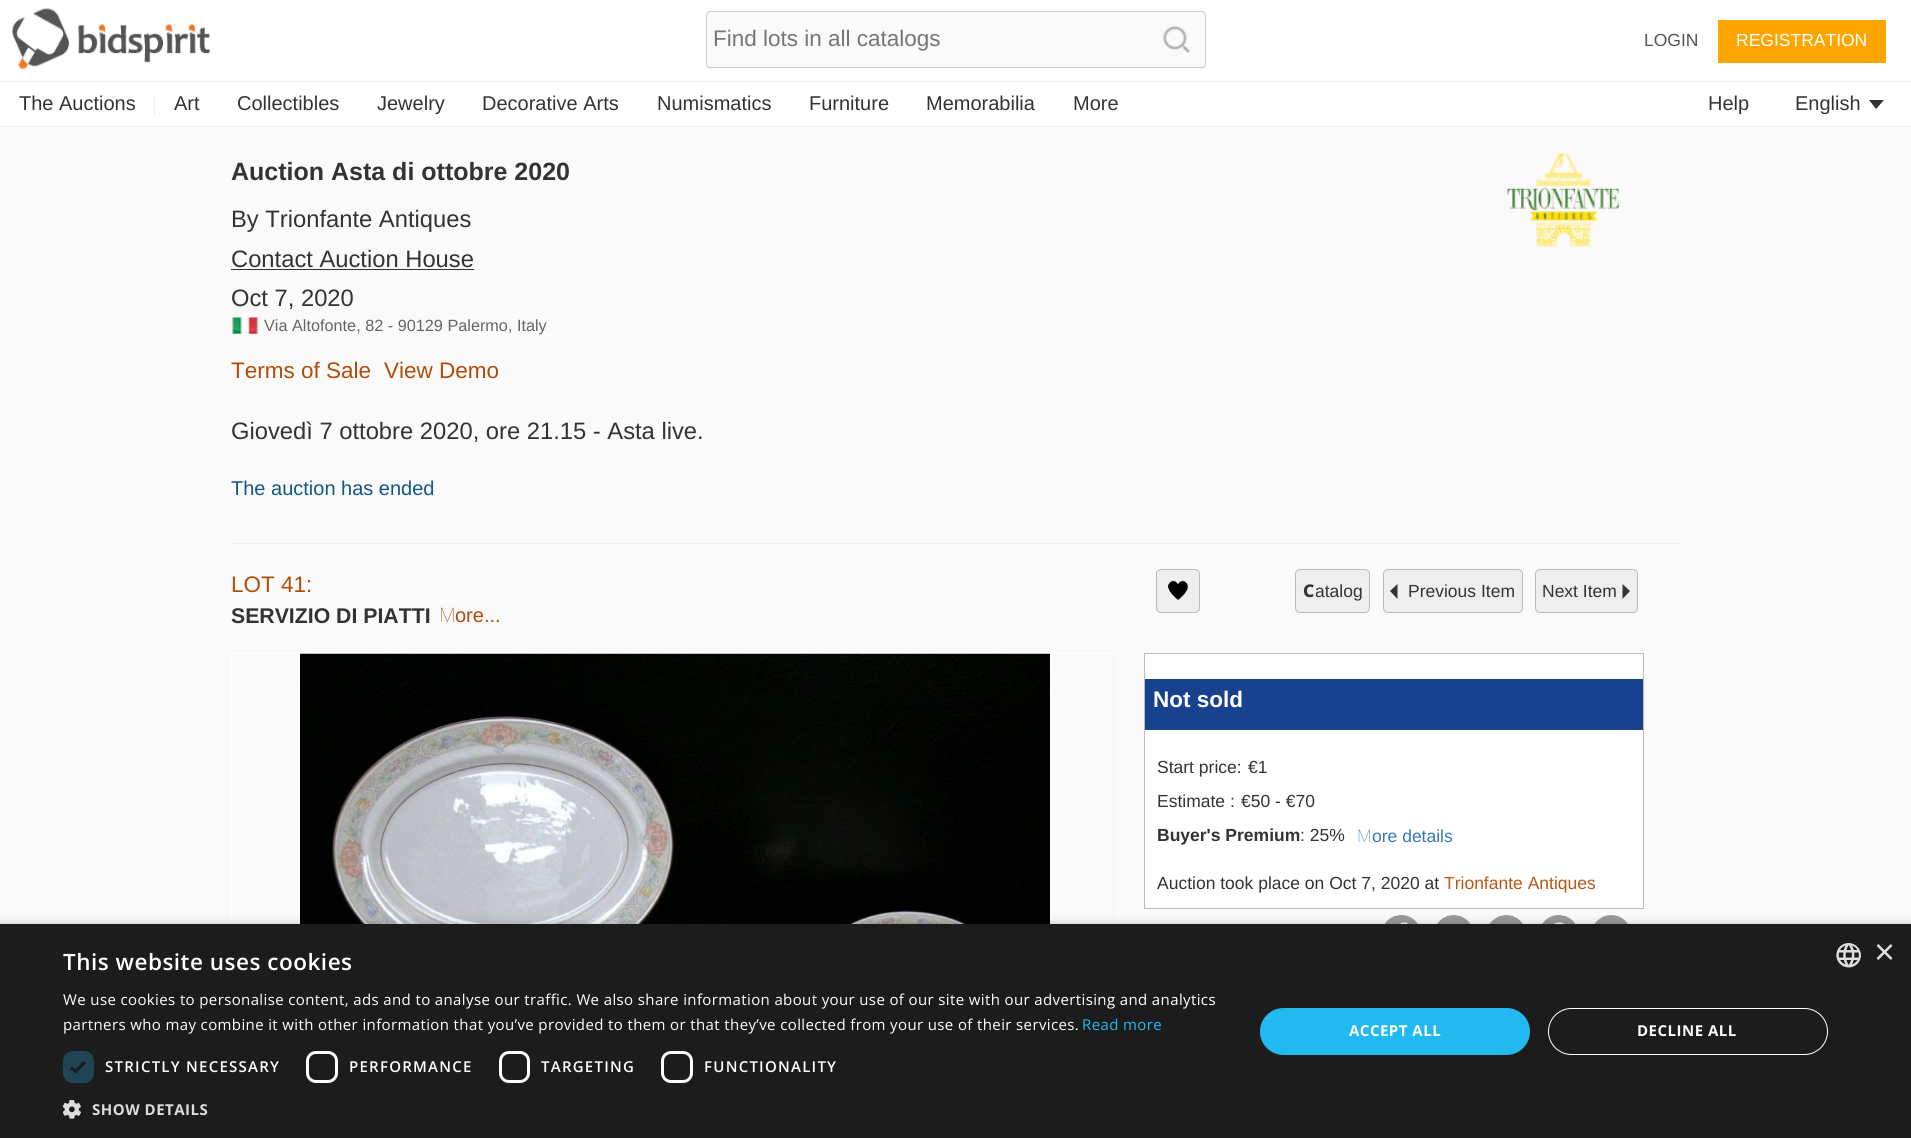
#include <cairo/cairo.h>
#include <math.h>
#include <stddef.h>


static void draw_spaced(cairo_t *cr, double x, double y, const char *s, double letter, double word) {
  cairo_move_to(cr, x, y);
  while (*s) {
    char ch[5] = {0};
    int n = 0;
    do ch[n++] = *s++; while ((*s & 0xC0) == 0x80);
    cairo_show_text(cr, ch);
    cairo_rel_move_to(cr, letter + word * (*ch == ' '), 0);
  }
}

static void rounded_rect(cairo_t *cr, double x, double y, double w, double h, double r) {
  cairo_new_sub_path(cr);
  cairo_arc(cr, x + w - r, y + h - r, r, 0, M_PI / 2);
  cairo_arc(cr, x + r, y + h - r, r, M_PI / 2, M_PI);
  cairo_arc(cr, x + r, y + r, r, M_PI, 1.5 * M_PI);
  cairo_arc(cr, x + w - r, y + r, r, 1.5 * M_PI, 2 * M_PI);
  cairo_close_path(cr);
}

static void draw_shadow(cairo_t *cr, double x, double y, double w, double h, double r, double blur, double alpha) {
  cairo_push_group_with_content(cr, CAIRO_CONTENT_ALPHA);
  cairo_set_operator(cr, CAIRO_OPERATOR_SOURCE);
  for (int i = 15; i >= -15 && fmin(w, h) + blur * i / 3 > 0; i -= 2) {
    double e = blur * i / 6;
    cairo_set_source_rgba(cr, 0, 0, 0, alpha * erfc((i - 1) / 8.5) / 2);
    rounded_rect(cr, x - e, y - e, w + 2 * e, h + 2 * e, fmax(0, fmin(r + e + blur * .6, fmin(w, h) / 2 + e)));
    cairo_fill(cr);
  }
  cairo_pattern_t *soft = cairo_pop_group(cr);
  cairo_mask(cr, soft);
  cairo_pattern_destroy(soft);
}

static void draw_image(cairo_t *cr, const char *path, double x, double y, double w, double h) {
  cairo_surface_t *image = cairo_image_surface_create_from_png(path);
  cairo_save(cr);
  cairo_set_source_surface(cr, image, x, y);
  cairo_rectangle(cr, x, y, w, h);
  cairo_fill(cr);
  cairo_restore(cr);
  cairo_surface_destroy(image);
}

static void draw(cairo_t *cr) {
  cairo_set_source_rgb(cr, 250 / 255.0, 250 / 255.0, 250 / 255.0);
  cairo_paint(cr);
  cairo_set_source_rgb(cr, 1, 1, 1);
  cairo_rectangle(cr, 0, 0, 1911, 128);
  cairo_fill(cr);
  cairo_set_source_rgb(cr, 238 / 255.0, 238 / 255.0, 238 / 255.0);
  cairo_rectangle(cr, 0, 126, 1911, 1);
  cairo_fill(cr);
  cairo_set_source_rgb(cr, 250 / 255.0, 250 / 255.0, 250 / 255.0);
  rounded_rect(cr, 706.5, 11.5, 499, 56, 3.5);
  cairo_fill_preserve(cr);
  cairo_set_source_rgb(cr, 204 / 255.0, 204 / 255.0, 204 / 255.0);
  cairo_set_line_width(cr, 1);
  cairo_stroke(cr);
  draw_image(cr, "images/1.png", 1163, 25, 28, 28);
  cairo_set_source_rgb(cr, 238 / 255.0, 238 / 255.0, 238 / 255.0);
  cairo_rectangle(cr, 0, 81, 1911, 1);
  cairo_fill(cr);
  draw_image(cr, "images/2.png", 12, 8, 198, 62);
  cairo_set_source_rgb(cr, 1, 165 / 255.0, 0);
  cairo_rectangle(cr, 1718, 20, 168, 43);
  cairo_fill(cr);
  cairo_set_source_rgb(cr, 238 / 255.0, 238 / 255.0, 238 / 255.0);
  cairo_rectangle(cr, 154, 94, 1, 21);
  cairo_fill(cr);
  cairo_set_source_rgb(cr, 51 / 255.0, 51 / 255.0, 51 / 255.0);
  cairo_new_path(cr);
  cairo_move_to(cr, 1869, 100);
  cairo_line_to(cr, 1884, 100);
  cairo_line_to(cr, 1876, 109);
  cairo_close_path(cr);
  cairo_fill(cr);
  cairo_rectangle(cr, 231, 269, 243, 1);
  cairo_fill(cr);
  draw_image(cr, "images/3.png", 1507, 153, 112, 94);
  draw_image(cr, "images/4.png", 232, 317, 26, 17);
  cairo_set_source_rgb(cr, 238 / 255.0, 238 / 255.0, 238 / 255.0);
  cairo_rectangle(cr, 231, 543, 1450, 1);
  cairo_fill(cr);
  rounded_rect(cr, 1156, 569, 44, 44, 5);
  cairo_fill(cr);
  draw_image(cr, "images/5.png", 1168, 580, 20, 20);
  rounded_rect(cr, 1156.5, 569.5, 43, 43, 4.5);
  cairo_set_source_rgb(cr, 187 / 255.0, 187 / 255.0, 187 / 255.0);
  cairo_stroke(cr);
  cairo_set_source_rgb(cr, 238 / 255.0, 238 / 255.0, 238 / 255.0);
  rounded_rect(cr, 1295.5, 569.5, 74, 43, 4.5);
  cairo_fill_preserve(cr);
  cairo_set_source_rgb(cr, 187 / 255.0, 187 / 255.0, 187 / 255.0);
  cairo_stroke(cr);
  cairo_set_source_rgb(cr, 238 / 255.0, 238 / 255.0, 238 / 255.0);
  rounded_rect(cr, 1383.5, 569.5, 139, 43, 4.5);
  cairo_fill_preserve(cr);
  cairo_set_source_rgb(cr, 187 / 255.0, 187 / 255.0, 187 / 255.0);
  cairo_stroke(cr);
  cairo_set_source_rgb(cr, 51 / 255.0, 51 / 255.0, 51 / 255.0);
  cairo_new_path(cr);
  cairo_move_to(cr, 1397.5, 584);
  cairo_line_to(cr, 1397.5, 599);
  cairo_line_to(cr, 1390, 591);
  cairo_close_path(cr);
  cairo_fill(cr);
  cairo_set_source_rgb(cr, 238 / 255.0, 238 / 255.0, 238 / 255.0);
  rounded_rect(cr, 1535.5, 569.5, 102, 43, 4.5);
  cairo_fill_preserve(cr);
  cairo_set_source_rgb(cr, 187 / 255.0, 187 / 255.0, 187 / 255.0);
  cairo_stroke(cr);
  cairo_set_source_rgb(cr, 51 / 255.0, 51 / 255.0, 51 / 255.0);
  cairo_new_path(cr);
  cairo_move_to(cr, 1622.5, 599);
  cairo_line_to(cr, 1622.5, 584);
  cairo_line_to(cr, 1630, 591);
  cairo_close_path(cr);
  cairo_fill(cr);
  cairo_rectangle(cr, 231.5, 653.5, 887, 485);
  cairo_set_source_rgb(cr, 1, 1, 1);
  cairo_stroke(cr);
  draw_image(cr, "images/6.png", 300, 653, 750, 271);
  cairo_rectangle(cr, 1144.5, 653.5, 499, 255);
  cairo_fill_preserve(cr);
  cairo_set_source_rgb(cr, 187 / 255.0, 187 / 255.0, 187 / 255.0);
  cairo_stroke(cr);
  cairo_set_source_rgb(cr, 24 / 255.0, 66 / 255.0, 142 / 255.0);
  cairo_rectangle(cr, 1145, 679, 498, 51);
  cairo_fill(cr);
  draw_image(cr, "images/7.png", 1384, 915, 34, 9);
  draw_image(cr, "images/8.png", 1437, 915, 34, 9);
  draw_image(cr, "images/9.png", 1489, 915, 34, 9);
  draw_image(cr, "images/10.png", 1542, 915, 34, 9);
  draw_image(cr, "images/9.png", 1594, 915, 34, 9);
  cairo_set_source_rgb(cr, 0, 0, 0);
  draw_shadow(cr, 1, 926, 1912, 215, 0, 5, 0.35);
  cairo_set_source_rgb(cr, 28 / 255.0, 28 / 255.0, 28 / 255.0);
  cairo_rectangle(cr, 0, 924, 1911, 214);
  cairo_fill(cr);
  cairo_set_source_rgb(cr, 30 / 255.0, 69 / 255.0, 83 / 255.0);
  rounded_rect(cr, 63, 1051, 31, 32, 10);
  cairo_fill(cr);
  cairo_new_path(cr);
  cairo_move_to(cr, 71, 1067.5);
  cairo_line_to(cr, 75.5, 1071.5);
  cairo_line_to(cr, 85, 1062);
  cairo_set_source_rgb(cr, 28 / 255.0, 28 / 255.0, 28 / 255.0);
  cairo_set_line_width(cr, 3.3);
  cairo_stroke(cr);
  rounded_rect(cr, 307.5, 1052.5, 29, 29, 8.5);
  cairo_set_source_rgb(cr, 1, 1, 1);
  cairo_set_line_width(cr, 3);
  cairo_stroke(cr);
  rounded_rect(cr, 500.5, 1052.5, 28, 29, 8.5);
  cairo_stroke(cr);
  rounded_rect(cr, 662.5, 1052.5, 29, 29, 8.5);
  cairo_stroke(cr);
  draw_image(cr, "images/11.png", 63, 1100, 18, 19);
  cairo_set_source_rgb(cr, 34 / 255.0, 184 / 255.0, 240 / 255.0);
  rounded_rect(cr, 1260, 1008, 270, 47, 23.5);
  cairo_fill(cr);
  rounded_rect(cr, 1548.5, 1008.5, 279, 46, 23);
  cairo_set_source_rgb(cr, 1, 1, 1);
  cairo_set_line_width(cr, 1);
  cairo_stroke(cr);
  draw_image(cr, "images/12.png", 1836, 943, 25, 25);
  cairo_select_font_face(cr, "Liberation Sans", CAIRO_FONT_SLANT_NORMAL, CAIRO_FONT_WEIGHT_NORMAL);
  cairo_set_font_size(cr, 22.5);
  cairo_set_source_rgb(cr, 117 / 255.0, 117 / 255.0, 117 / 255.0);
  cairo_move_to(cr, 713, 46);
  cairo_show_text(cr, "Find lots in all catalogs");
  cairo_set_font_size(cr, 17.5);
  cairo_set_source_rgb(cr, 85 / 255.0, 85 / 255.0, 85 / 255.0);
  cairo_move_to(cr, 1644, 46);
  cairo_show_text(cr, "LOGIN");
  cairo_set_source_rgb(cr, 1, 1, 1);
  cairo_move_to(cr, 1736, 46);
  cairo_show_text(cr, "REGISTRATION");
  cairo_set_font_size(cr, 20);
  cairo_set_source_rgb(cr, 51 / 255.0, 51 / 255.0, 51 / 255.0);
  cairo_move_to(cr, 19, 110);
  cairo_show_text(cr, "The Auctions");
  cairo_move_to(cr, 174, 110);
  cairo_show_text(cr, "Art");
  cairo_move_to(cr, 237, 110);
  cairo_show_text(cr, "Collectibles");
  cairo_move_to(cr, 377, 110);
  cairo_show_text(cr, "Jewelry");
  cairo_move_to(cr, 482, 110);
  cairo_show_text(cr, "Decorative Arts");
  cairo_move_to(cr, 657, 110);
  cairo_show_text(cr, "Numismatics");
  cairo_move_to(cr, 809, 110);
  cairo_show_text(cr, "Furniture");
  cairo_move_to(cr, 926, 110);
  cairo_show_text(cr, "Memorabilia");
  cairo_move_to(cr, 1073, 110);
  cairo_show_text(cr, "More");
  cairo_move_to(cr, 1708, 110);
  cairo_show_text(cr, "Help");
  cairo_move_to(cr, 1795, 110);
  cairo_show_text(cr, "English");
  cairo_select_font_face(cr, "Liberation Sans", CAIRO_FONT_SLANT_NORMAL, CAIRO_FONT_WEIGHT_BOLD);
  cairo_set_font_size(cr, 25);
  cairo_move_to(cr, 231, 180);
  cairo_show_text(cr, "Auction Asta di ottobre 2020");
  cairo_select_font_face(cr, "Liberation Sans", CAIRO_FONT_SLANT_NORMAL, CAIRO_FONT_WEIGHT_NORMAL);
  cairo_set_font_size(cr, 23.75);
  cairo_move_to(cr, 231, 227);
  cairo_show_text(cr, "By Trionfante Antiques");
  cairo_move_to(cr, 231, 267);
  cairo_show_text(cr, "Contact Auction House");
  cairo_move_to(cr, 231, 306);
  cairo_show_text(cr, "Oct 7, 2020");
  cairo_set_font_size(cr, 16.25);
  cairo_set_source_rgb(cr, 101 / 255.0, 101 / 255.0, 101 / 255.0);
  cairo_move_to(cr, 264, 331);
  cairo_show_text(cr, "Via Altofonte, 82 - 90129 Palermo, Italy");
  cairo_set_font_size(cr, 22.5);
  cairo_set_source_rgb(cr, 180 / 255.0, 75 / 255.0, 7 / 255.0);
  cairo_move_to(cr, 231, 378);
  cairo_show_text(cr, "Terms of Sale");
  cairo_move_to(cr, 384, 378);
  cairo_show_text(cr, "View Demo");
  cairo_set_font_size(cr, 23.75);
  cairo_set_source_rgb(cr, 51 / 255.0, 51 / 255.0, 51 / 255.0);
  cairo_move_to(cr, 231, 439);
  cairo_show_text(cr, "Giovedì 7 ottobre 2020, ore 21.15 - Asta live.");
  cairo_set_font_size(cr, 20);
  cairo_set_source_rgb(cr, 17 / 255.0, 87 / 255.0, 135 / 255.0);
  cairo_move_to(cr, 231, 495);
  cairo_show_text(cr, "The auction has ended");
  cairo_set_font_size(cr, 22.5);
  cairo_set_source_rgb(cr, 180 / 255.0, 75 / 255.0, 7 / 255.0);
  cairo_move_to(cr, 231, 592);
  cairo_show_text(cr, "LOT 41:");
  cairo_select_font_face(cr, "Liberation Sans", CAIRO_FONT_SLANT_NORMAL, CAIRO_FONT_WEIGHT_BOLD);
  cairo_set_font_size(cr, 21.25);
  cairo_set_source_rgb(cr, 51 / 255.0, 51 / 255.0, 51 / 255.0);
  cairo_move_to(cr, 231, 623);
  cairo_show_text(cr, "SERVIZIO DI PIATTI");
  cairo_select_font_face(cr, "Noto Sans Thin", CAIRO_FONT_SLANT_NORMAL, CAIRO_FONT_WEIGHT_NORMAL);
  cairo_set_font_size(cr, 20);
  cairo_set_source_rgb(cr, 180 / 255.0, 75 / 255.0, 7 / 255.0);
  cairo_move_to(cr, 439, 622);
  cairo_show_text(cr, "M");
  cairo_select_font_face(cr, "Liberation Sans", CAIRO_FONT_SLANT_NORMAL, CAIRO_FONT_WEIGHT_NORMAL);
  cairo_move_to(cr, 455, 622);
  cairo_show_text(cr, "ore...");
  cairo_select_font_face(cr, "Noto Sans ExtraBold", CAIRO_FONT_SLANT_NORMAL, CAIRO_FONT_WEIGHT_NORMAL);
  cairo_set_font_size(cr, 17.5);
  cairo_set_source_rgb(cr, 51 / 255.0, 51 / 255.0, 51 / 255.0);
  cairo_move_to(cr, 1303, 597);
  cairo_show_text(cr, "C");
  cairo_select_font_face(cr, "Liberation Sans", CAIRO_FONT_SLANT_NORMAL, CAIRO_FONT_WEIGHT_NORMAL);
  cairo_move_to(cr, 1315, 597);
  cairo_show_text(cr, "atalog");
  cairo_move_to(cr, 1408, 597);
  cairo_show_text(cr, "Previous Item");
  cairo_move_to(cr, 1542, 597);
  cairo_show_text(cr, "Next Item");
  cairo_select_font_face(cr, "Liberation Sans", CAIRO_FONT_SLANT_NORMAL, CAIRO_FONT_WEIGHT_BOLD);
  cairo_set_font_size(cr, 22.5);
  cairo_set_source_rgb(cr, 1, 1, 1);
  cairo_move_to(cr, 1153, 707);
  cairo_show_text(cr, "Not sold");
  cairo_select_font_face(cr, "Liberation Sans", CAIRO_FONT_SLANT_NORMAL, CAIRO_FONT_WEIGHT_NORMAL);
  cairo_set_font_size(cr, 17.5);
  cairo_set_source_rgb(cr, 51 / 255.0, 51 / 255.0, 51 / 255.0);
  cairo_move_to(cr, 1157, 773);
  cairo_show_text(cr, "Start price:");
  cairo_move_to(cr, 1248, 773);
  cairo_show_text(cr, "€1");
  cairo_move_to(cr, 1157, 807);
  cairo_show_text(cr, "Estimate :");
  cairo_move_to(cr, 1241, 807);
  cairo_show_text(cr, "€50 - €70");
  cairo_select_font_face(cr, "Liberation Sans", CAIRO_FONT_SLANT_NORMAL, CAIRO_FONT_WEIGHT_BOLD);
  cairo_move_to(cr, 1157, 841);
  cairo_show_text(cr, "Buyer's Premium");
  cairo_select_font_face(cr, "Liberation Sans", CAIRO_FONT_SLANT_NORMAL, CAIRO_FONT_WEIGHT_NORMAL);
  cairo_move_to(cr, 1300, 841);
  cairo_show_text(cr, ": 25%");
  cairo_select_font_face(cr, "Noto Sans Thin", CAIRO_FONT_SLANT_NORMAL, CAIRO_FONT_WEIGHT_NORMAL);
  cairo_set_source_rgb(cr, 51 / 255.0, 122 / 255.0, 183 / 255.0);
  cairo_move_to(cr, 1357, 842);
  cairo_show_text(cr, "M");
  cairo_select_font_face(cr, "Liberation Sans", CAIRO_FONT_SLANT_NORMAL, CAIRO_FONT_WEIGHT_NORMAL);
  cairo_move_to(cr, 1372, 842);
  cairo_show_text(cr, "ore details");
  cairo_set_source_rgb(cr, 51 / 255.0, 51 / 255.0, 51 / 255.0);
  cairo_move_to(cr, 1157, 889);
  cairo_show_text(cr, "Auction took place on Oct 7, 2020 at");
  cairo_set_source_rgb(cr, 185 / 255.0, 87 / 255.0, 23 / 255.0);
  cairo_move_to(cr, 1444, 889);
  cairo_show_text(cr, "Trionfante Antiques");
  cairo_select_font_face(cr, "Open Sans SemiBold", CAIRO_FONT_SLANT_NORMAL, CAIRO_FONT_WEIGHT_NORMAL);
  cairo_set_font_size(cr, 22.5);
  cairo_set_source_rgb(cr, 1, 1, 1);
  draw_spaced(cr, 63, 970, "This website uses cookies", 0.5, 0);
  cairo_select_font_face(cr, "Open Sans", CAIRO_FONT_SLANT_NORMAL, CAIRO_FONT_WEIGHT_NORMAL);
  cairo_set_font_size(cr, 15);
  draw_spaced(cr, 63, 1005, "We use cookies to personalise content, ads and to analyse our traffic. We also share information about your use of our site with our advertising and analytics", 0.38, 0);
  draw_spaced(cr, 63, 1030, "partners who may combine it with other information that you’ve provided to them or that they’ve collected from your use of their services.", 0.38, 0);
  cairo_set_source_rgb(cr, 34 / 255.0, 184 / 255.0, 240 / 255.0);
  draw_spaced(cr, 1082, 1030, "Read more", 0.38, 0);
  cairo_select_font_face(cr, "Open Sans SemiBold", CAIRO_FONT_SLANT_NORMAL, CAIRO_FONT_WEIGHT_NORMAL);
  cairo_set_source_rgb(cr, 1, 1, 1);
  draw_spaced(cr, 105, 1072, "STRICTLY NECESSARY", 1.25, 0);
  draw_spaced(cr, 349, 1072, "PERFORMANCE", 1.25, 0);
  draw_spaced(cr, 541, 1072, "TARGETING", 1.25, 0);
  draw_spaced(cr, 704, 1072, "FUNCTIONALITY", 1.25, 0);
  cairo_select_font_face(cr, "Open Sans", CAIRO_FONT_SLANT_NORMAL, CAIRO_FONT_WEIGHT_BOLD);
  cairo_set_source_rgb(cr, 221 / 255.0, 221 / 255.0, 221 / 255.0);
  draw_spaced(cr, 92, 1115, "SHOW DETAILS", 0.5, 0);
  cairo_set_source_rgb(cr, 1, 1, 1);
  draw_spaced(cr, 1349, 1036, "ACCEPT ALL", 0.5, 0);
  draw_spaced(cr, 1637, 1036, "DECLINE ALL", 0.5, 0);
  cairo_select_font_face(cr, "Liberation Sans", CAIRO_FONT_SLANT_NORMAL, CAIRO_FONT_WEIGHT_NORMAL);
  cairo_set_font_size(cr, 36);
  cairo_set_source_rgb(cr, 221 / 255.0, 221 / 255.0, 221 / 255.0);
  cairo_move_to(cr, 1874, 964);
  cairo_show_text(cr, "×");
}

int main(void) {
  cairo_surface_t *surface = cairo_image_surface_create(CAIRO_FORMAT_RGB24, 1911, 1138);
  cairo_t *cr = cairo_create(surface);
  cairo_font_options_t *options = cairo_font_options_create();
  cairo_font_options_set_hint_metrics(options, CAIRO_HINT_METRICS_OFF);
  cairo_font_options_set_hint_style(options, CAIRO_HINT_STYLE_NONE);
  cairo_set_font_options(cr, options);
  cairo_set_miter_limit(cr, 4);
  draw(cr);
  cairo_surface_write_to_png(surface, "out.png");
  cairo_font_options_destroy(options);
  cairo_destroy(cr);
  cairo_surface_destroy(surface);
  return 0;
}
